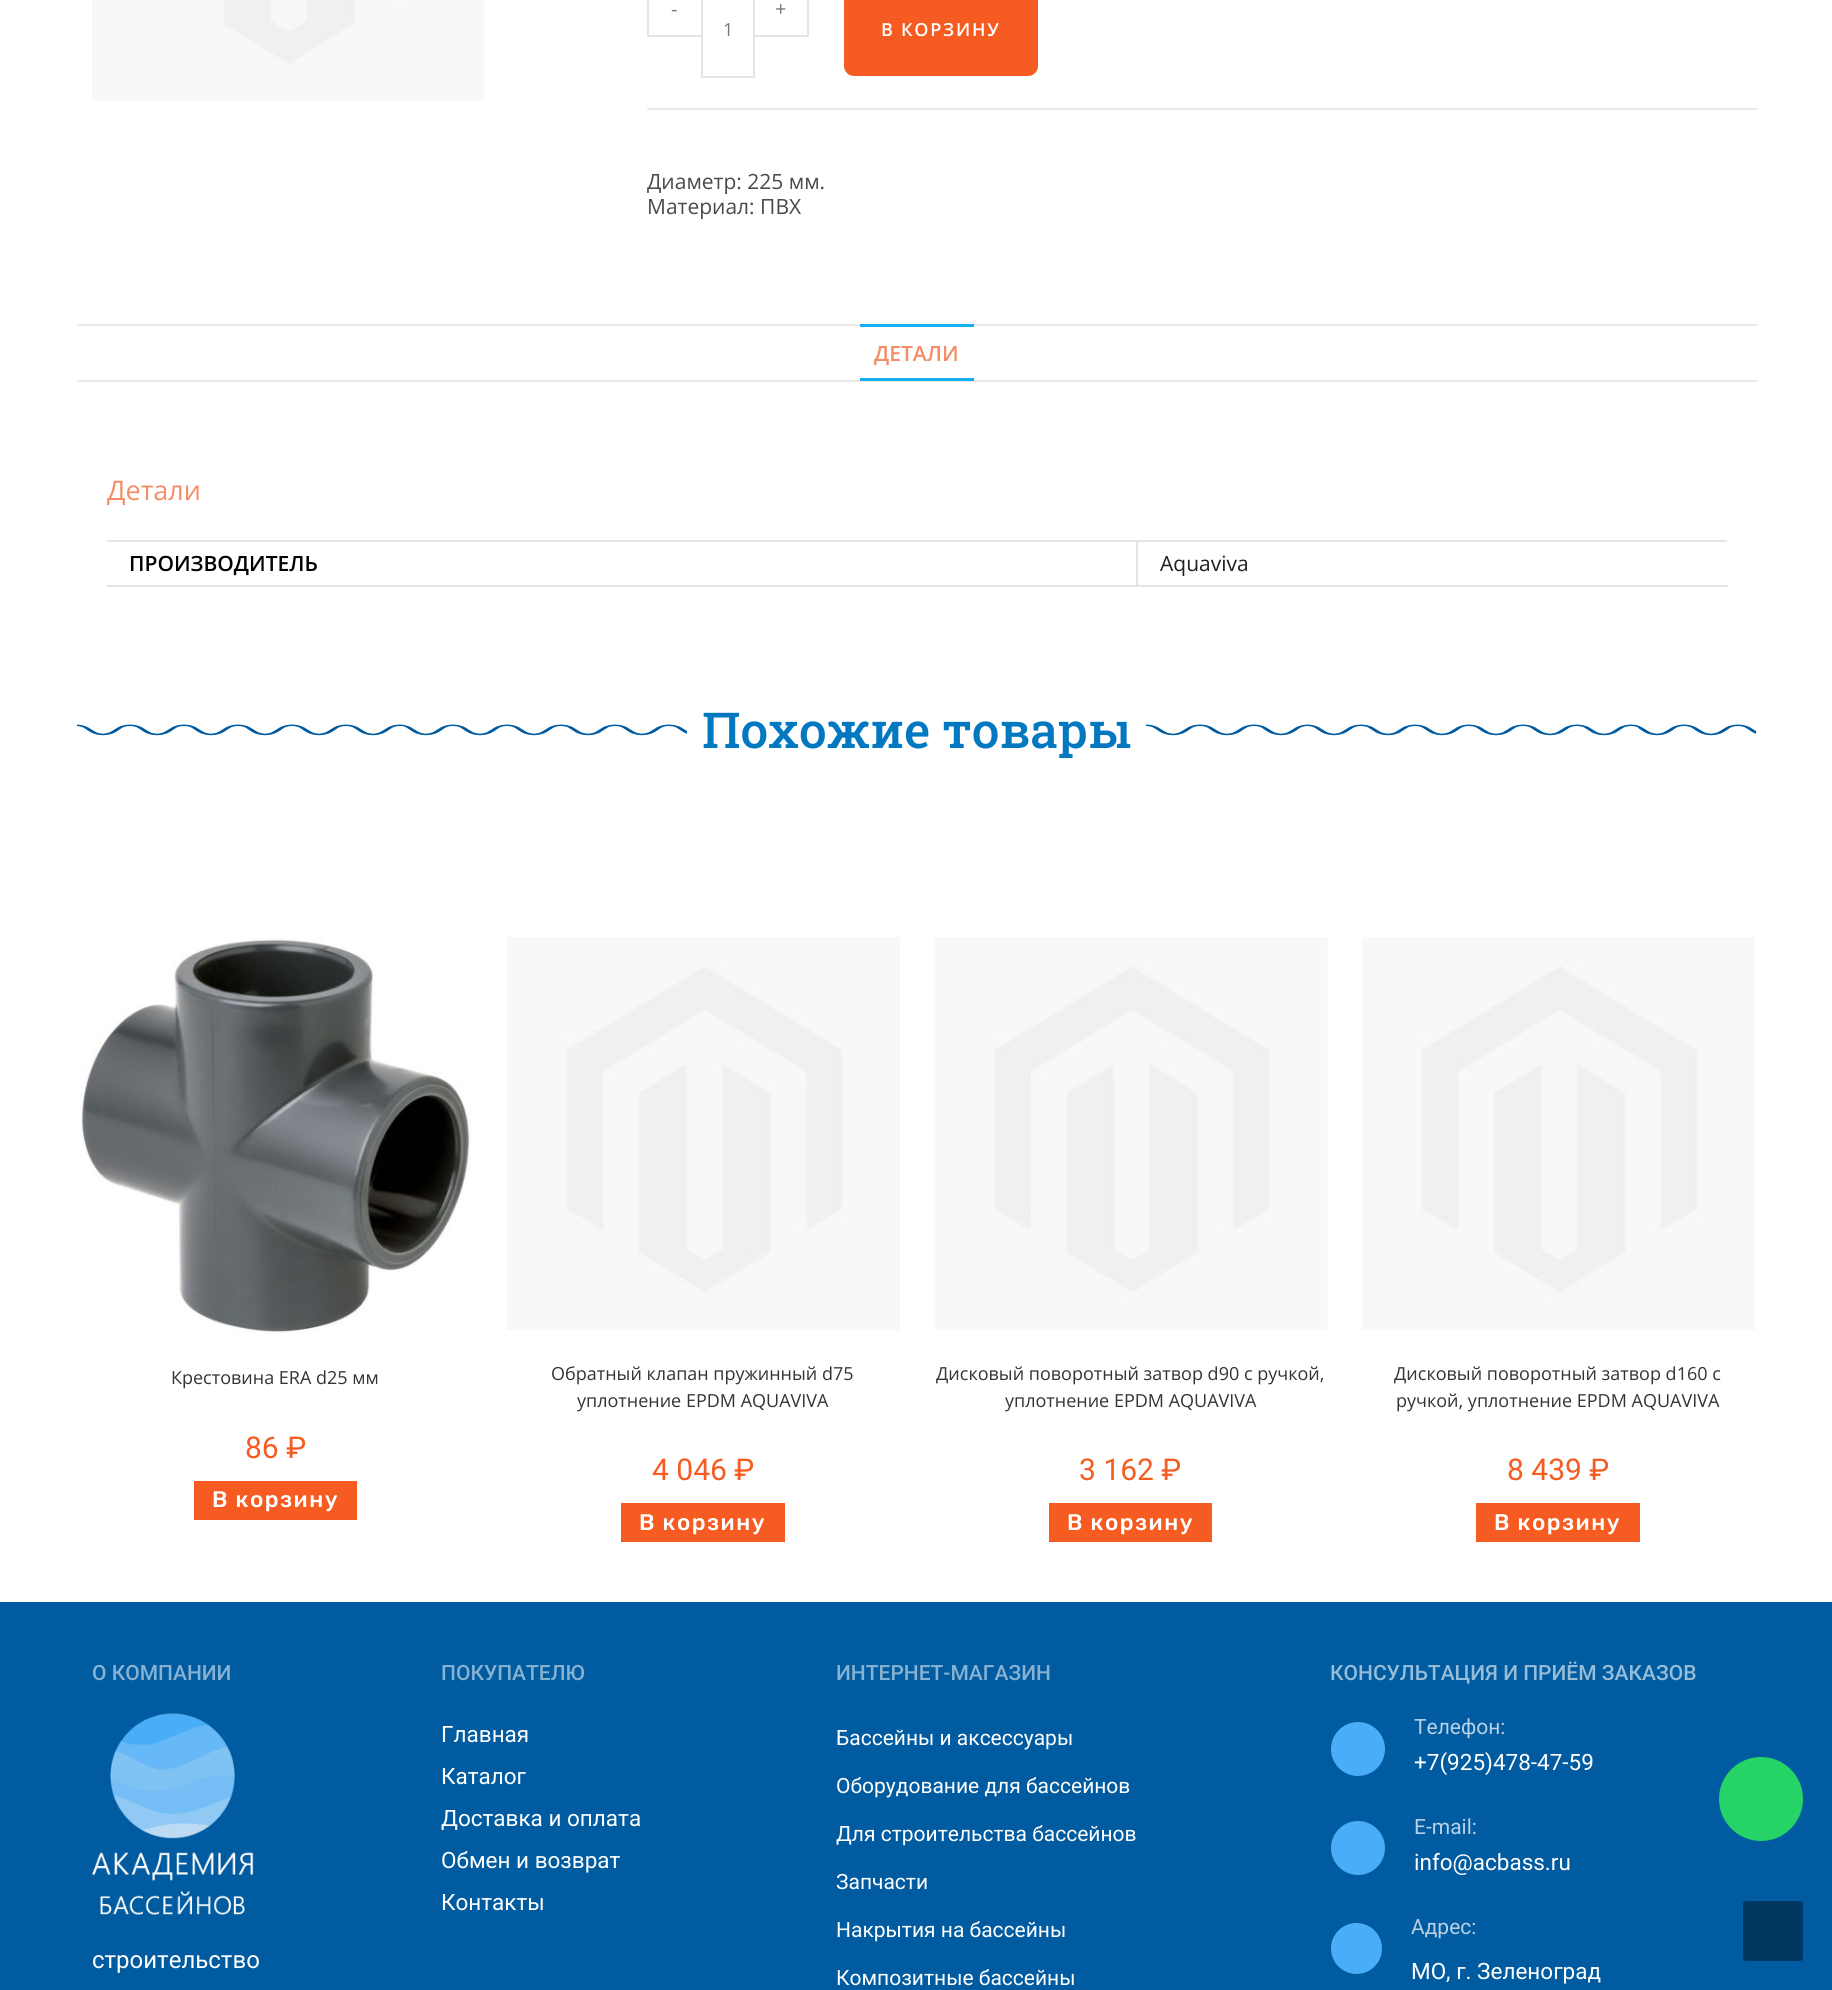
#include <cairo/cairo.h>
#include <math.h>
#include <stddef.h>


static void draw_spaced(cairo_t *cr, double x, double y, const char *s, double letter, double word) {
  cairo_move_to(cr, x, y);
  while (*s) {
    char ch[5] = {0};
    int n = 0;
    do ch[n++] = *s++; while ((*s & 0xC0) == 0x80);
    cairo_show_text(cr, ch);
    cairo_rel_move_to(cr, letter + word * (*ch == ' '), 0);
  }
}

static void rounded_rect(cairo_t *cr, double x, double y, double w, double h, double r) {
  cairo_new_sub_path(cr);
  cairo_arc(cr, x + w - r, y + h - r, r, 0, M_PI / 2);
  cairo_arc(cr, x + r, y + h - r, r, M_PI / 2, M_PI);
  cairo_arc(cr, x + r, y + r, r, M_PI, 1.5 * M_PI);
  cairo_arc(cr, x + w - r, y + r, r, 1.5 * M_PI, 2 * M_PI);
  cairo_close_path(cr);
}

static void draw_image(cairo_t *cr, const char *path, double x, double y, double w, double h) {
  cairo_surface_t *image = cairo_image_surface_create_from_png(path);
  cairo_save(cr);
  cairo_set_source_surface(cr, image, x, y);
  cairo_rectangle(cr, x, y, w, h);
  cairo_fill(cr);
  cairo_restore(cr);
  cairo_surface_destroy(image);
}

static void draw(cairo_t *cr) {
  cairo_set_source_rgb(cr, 1, 1, 1);
  cairo_paint(cr);
  draw_image(cr, "images/1.png", 92, 0, 393, 101);
  cairo_set_source_rgb(cr, 234 / 255.0, 234 / 255.0, 234 / 255.0);
  cairo_rectangle(cr, 647, 108, 1110, 2);
  cairo_fill(cr);
  cairo_set_source_rgb(cr, 228 / 255.0, 228 / 255.0, 228 / 255.0);
  cairo_rectangle(cr, 647, 35, 54, 2);
  cairo_fill(cr);
  cairo_rectangle(cr, 647, 0, 2, 36);
  cairo_fill(cr);
  cairo_rectangle(cr, 807, 0, 2, 36);
  cairo_fill(cr);
  cairo_rectangle(cr, 755, 35, 54, 2);
  cairo_fill(cr);
  cairo_rectangle(cr, 702, -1, 52, 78);
  cairo_stroke(cr);
  cairo_set_source_rgb(cr, 246 / 255.0, 92 / 255.0, 33 / 255.0);
  rounded_rect(cr, 843, -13, 196, 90, 11);
  cairo_fill_preserve(cr);
  cairo_set_source_rgb(cr, 1, 1, 1);
  cairo_stroke(cr);
  cairo_set_source_rgb(cr, 234 / 255.0, 234 / 255.0, 234 / 255.0);
  cairo_rectangle(cr, 77, 324, 1680, 2);
  cairo_fill(cr);
  cairo_rectangle(cr, 77, 380, 1680, 2);
  cairo_fill(cr);
  cairo_set_source_rgb(cr, 19 / 255.0, 175 / 255.0, 240 / 255.0);
  cairo_rectangle(cr, 860, 324, 114, 3);
  cairo_fill(cr);
  cairo_rectangle(cr, 860, 378, 114, 3);
  cairo_fill(cr);
  cairo_set_source_rgb(cr, 228 / 255.0, 228 / 255.0, 228 / 255.0);
  cairo_rectangle(cr, 107, 540, 1620, 2);
  cairo_fill(cr);
  cairo_rectangle(cr, 1136, 585, 592, 2);
  cairo_fill(cr);
  cairo_rectangle(cr, 1136, 540, 2, 47);
  cairo_fill(cr);
  cairo_rectangle(cr, 107, 585, 1030, 2);
  cairo_fill(cr);
  draw_image(cr, "images/2.png", 76, 724, 611, 12);
  draw_image(cr, "images/3.png", 1146, 724, 611, 12);
  draw_image(cr, "images/4.png", 78, 938, 393, 395);
  cairo_set_source_rgb(cr, 246 / 255.0, 92 / 255.0, 33 / 255.0);
  cairo_rectangle(cr, 194, 1481, 163, 39);
  cairo_fill(cr);
  draw_image(cr, "images/5.png", 507, 937, 393, 393);
  cairo_rectangle(cr, 621, 1503, 164, 39);
  cairo_fill(cr);
  draw_image(cr, "images/6.png", 934, 937, 394, 393);
  cairo_rectangle(cr, 1049, 1503, 163, 39);
  cairo_fill(cr);
  draw_image(cr, "images/7.png", 1362, 937, 393, 393);
  cairo_rectangle(cr, 1476, 1503, 164, 39);
  cairo_fill(cr);
  cairo_set_source_rgb(cr, 0, 91 / 255.0, 160 / 255.0);
  cairo_rectangle(cr, 0, 1602, 1832, 388);
  cairo_fill(cr);
  draw_image(cr, "images/8.png", 91, 1713, 163, 202);
  cairo_set_source_rgb(cr, 74 / 255.0, 173 / 255.0, 247 / 255.0);
  cairo_arc(cr, 1358, 1749, 27, 0, 2 * M_PI);
  cairo_fill(cr);
  cairo_arc(cr, 1358, 1848, 27, 0, 2 * M_PI);
  cairo_fill(cr);
  cairo_arc(cr, 1356.5, 1948.5, 25.5, 0, 2 * M_PI);
  cairo_fill(cr);
  cairo_set_source_rgb(cr, 37 / 255.0, 211 / 255.0, 102 / 255.0);
  cairo_arc(cr, 1761, 1799, 42, 0, 2 * M_PI);
  cairo_fill(cr);
  cairo_set_source_rgb(cr, 0, 55 / 255.0, 96 / 255.0);
  rounded_rect(cr, 1743, 1901, 60, 60, 3);
  cairo_fill(cr);
  cairo_select_font_face(cr, "Open Sans", CAIRO_FONT_SLANT_NORMAL, CAIRO_FONT_WEIGHT_NORMAL);
  cairo_set_font_size(cr, 20);
  cairo_set_source_rgb(cr, 119 / 255.0, 119 / 255.0, 119 / 255.0);
  cairo_move_to(cr, 671, 16);
  cairo_show_text(cr, "-");
  cairo_move_to(cr, 775, 16);
  cairo_show_text(cr, "+");
  cairo_set_font_size(cr, 18);
  cairo_move_to(cr, 723, 36);
  cairo_show_text(cr, "1");
  cairo_select_font_face(cr, "Open Sans SemiBold", CAIRO_FONT_SLANT_NORMAL, CAIRO_FONT_WEIGHT_NORMAL);
  cairo_set_source_rgb(cr, 1, 1, 1);
  draw_spaced(cr, 881, 36, "В КОРЗИНУ", 1.75, 0);
  cairo_select_font_face(cr, "Open Sans", CAIRO_FONT_SLANT_NORMAL, CAIRO_FONT_WEIGHT_NORMAL);
  cairo_set_font_size(cr, 21);
  cairo_set_source_rgb(cr, 74 / 255.0, 74 / 255.0, 74 / 255.0);
  cairo_move_to(cr, 647, 189);
  cairo_show_text(cr, "Диаметр: 225 мм.");
  cairo_move_to(cr, 647, 214);
  cairo_show_text(cr, "Материал: ПВХ");
  cairo_select_font_face(cr, "Open Sans SemiBold", CAIRO_FONT_SLANT_NORMAL, CAIRO_FONT_WEIGHT_NORMAL);
  cairo_set_source_rgb(cr, 244 / 255.0, 141 / 255.0, 102 / 255.0);
  cairo_move_to(cr, 874, 361);
  cairo_show_text(cr, "ДЕТАЛИ");
  cairo_select_font_face(cr, "Open Sans", CAIRO_FONT_SLANT_NORMAL, CAIRO_FONT_WEIGHT_NORMAL);
  cairo_set_font_size(cr, 27);
  cairo_move_to(cr, 107, 500);
  cairo_show_text(cr, "Детали");
  cairo_select_font_face(cr, "Open Sans SemiBold", CAIRO_FONT_SLANT_NORMAL, CAIRO_FONT_WEIGHT_NORMAL);
  cairo_set_font_size(cr, 21);
  cairo_set_source_rgb(cr, 0, 0, 0);
  cairo_move_to(cr, 129, 571);
  cairo_show_text(cr, "ПРОИЗВОДИТЕЛЬ");
  cairo_select_font_face(cr, "Open Sans", CAIRO_FONT_SLANT_NORMAL, CAIRO_FONT_WEIGHT_NORMAL);
  cairo_set_source_rgb(cr, 32 / 255.0, 32 / 255.0, 32 / 255.0);
  cairo_move_to(cr, 1160, 571);
  cairo_show_text(cr, "Aquaviva");
  cairo_select_font_face(cr, "Roboto Slab Medium", CAIRO_FONT_SLANT_NORMAL, CAIRO_FONT_WEIGHT_NORMAL);
  cairo_set_font_size(cr, 49.5);
  cairo_set_source_rgb(cr, 2 / 255.0, 120 / 255.0, 193 / 255.0);
  cairo_move_to(cr, 702, 748);
  cairo_show_text(cr, "Похожие товары");
  cairo_select_font_face(cr, "Open Sans", CAIRO_FONT_SLANT_NORMAL, CAIRO_FONT_WEIGHT_NORMAL);
  cairo_set_font_size(cr, 18);
  cairo_set_source_rgb(cr, 51 / 255.0, 51 / 255.0, 51 / 255.0);
  cairo_move_to(cr, 171, 1384);
  cairo_show_text(cr, "Крестовина ERA d25 мм");
  cairo_select_font_face(cr, "Roboto", CAIRO_FONT_SLANT_NORMAL, CAIRO_FONT_WEIGHT_NORMAL);
  cairo_set_font_size(cr, 30);
  cairo_set_source_rgb(cr, 246 / 255.0, 92 / 255.0, 33 / 255.0);
  cairo_move_to(cr, 245, 1458);
  cairo_show_text(cr, "86 ₽");
  cairo_select_font_face(cr, "Rubik Medium", CAIRO_FONT_SLANT_NORMAL, CAIRO_FONT_WEIGHT_NORMAL);
  cairo_set_font_size(cr, 22.5);
  cairo_set_source_rgb(cr, 1, 1, 1);
  draw_spaced(cr, 212, 1507, "В корзину", 1.5, 0);
  cairo_select_font_face(cr, "Open Sans", CAIRO_FONT_SLANT_NORMAL, CAIRO_FONT_WEIGHT_NORMAL);
  cairo_set_font_size(cr, 18);
  cairo_set_source_rgb(cr, 51 / 255.0, 51 / 255.0, 51 / 255.0);
  cairo_move_to(cr, 551, 1380);
  cairo_show_text(cr, "Обратный клапан пружинный d75");
  cairo_move_to(cr, 577, 1407);
  cairo_show_text(cr, "уплотнение EPDM AQUAVIVA");
  cairo_select_font_face(cr, "Roboto", CAIRO_FONT_SLANT_NORMAL, CAIRO_FONT_WEIGHT_NORMAL);
  cairo_set_font_size(cr, 30);
  cairo_set_source_rgb(cr, 246 / 255.0, 92 / 255.0, 33 / 255.0);
  cairo_move_to(cr, 652, 1480);
  cairo_show_text(cr, "4 046 ₽");
  cairo_select_font_face(cr, "Rubik Medium", CAIRO_FONT_SLANT_NORMAL, CAIRO_FONT_WEIGHT_NORMAL);
  cairo_set_font_size(cr, 22.5);
  cairo_set_source_rgb(cr, 1, 1, 1);
  draw_spaced(cr, 639, 1530, "В корзину", 1.5, 0);
  cairo_select_font_face(cr, "Open Sans", CAIRO_FONT_SLANT_NORMAL, CAIRO_FONT_WEIGHT_NORMAL);
  cairo_set_font_size(cr, 18);
  cairo_set_source_rgb(cr, 51 / 255.0, 51 / 255.0, 51 / 255.0);
  cairo_move_to(cr, 936, 1380);
  cairo_show_text(cr, "Дисковый поворотный затвор d90 с ручкой,");
  cairo_move_to(cr, 1005, 1407);
  cairo_show_text(cr, "уплотнение EPDM AQUAVIVA");
  cairo_select_font_face(cr, "Roboto", CAIRO_FONT_SLANT_NORMAL, CAIRO_FONT_WEIGHT_NORMAL);
  cairo_set_font_size(cr, 30);
  cairo_set_source_rgb(cr, 246 / 255.0, 92 / 255.0, 33 / 255.0);
  cairo_move_to(cr, 1079, 1480);
  cairo_show_text(cr, "3 162 ₽");
  cairo_select_font_face(cr, "Rubik Medium", CAIRO_FONT_SLANT_NORMAL, CAIRO_FONT_WEIGHT_NORMAL);
  cairo_set_font_size(cr, 22.5);
  cairo_set_source_rgb(cr, 1, 1, 1);
  draw_spaced(cr, 1067, 1530, "В корзину", 1.5, 0);
  cairo_select_font_face(cr, "Open Sans", CAIRO_FONT_SLANT_NORMAL, CAIRO_FONT_WEIGHT_NORMAL);
  cairo_set_font_size(cr, 18);
  cairo_set_source_rgb(cr, 51 / 255.0, 51 / 255.0, 51 / 255.0);
  cairo_move_to(cr, 1394, 1380);
  cairo_show_text(cr, "Дисковый поворотный затвор d160 с");
  cairo_move_to(cr, 1396, 1407);
  cairo_show_text(cr, "ручкой, уплотнение EPDM AQUAVIVA");
  cairo_select_font_face(cr, "Roboto", CAIRO_FONT_SLANT_NORMAL, CAIRO_FONT_WEIGHT_NORMAL);
  cairo_set_font_size(cr, 30);
  cairo_set_source_rgb(cr, 246 / 255.0, 92 / 255.0, 33 / 255.0);
  cairo_move_to(cr, 1507, 1480);
  cairo_show_text(cr, "8 439 ₽");
  cairo_select_font_face(cr, "Rubik Medium", CAIRO_FONT_SLANT_NORMAL, CAIRO_FONT_WEIGHT_NORMAL);
  cairo_set_font_size(cr, 22.5);
  cairo_set_source_rgb(cr, 1, 1, 1);
  draw_spaced(cr, 1494, 1530, "В корзину", 1.5, 0);
  cairo_select_font_face(cr, "Roboto Medium", CAIRO_FONT_SLANT_NORMAL, CAIRO_FONT_WEIGHT_NORMAL);
  cairo_set_font_size(cr, 21);
  cairo_set_source_rgb(cr, 135 / 255.0, 178 / 255.0, 210 / 255.0);
  cairo_move_to(cr, 92, 1680);
  cairo_show_text(cr, "О КОМПАНИИ");
  cairo_select_font_face(cr, "Roboto", CAIRO_FONT_SLANT_NORMAL, CAIRO_FONT_WEIGHT_NORMAL);
  cairo_set_font_size(cr, 24);
  cairo_set_source_rgb(cr, 1, 1, 1);
  cairo_move_to(cr, 92, 1968);
  cairo_show_text(cr, "строительство");
  cairo_select_font_face(cr, "Roboto Medium", CAIRO_FONT_SLANT_NORMAL, CAIRO_FONT_WEIGHT_NORMAL);
  cairo_set_font_size(cr, 21);
  cairo_set_source_rgb(cr, 135 / 255.0, 178 / 255.0, 210 / 255.0);
  cairo_move_to(cr, 441, 1680);
  cairo_show_text(cr, "ПОКУПАТЕЛЮ");
  cairo_select_font_face(cr, "Roboto", CAIRO_FONT_SLANT_NORMAL, CAIRO_FONT_WEIGHT_NORMAL);
  cairo_set_font_size(cr, 22.5);
  cairo_set_source_rgb(cr, 1, 1, 1);
  cairo_move_to(cr, 441, 1742);
  cairo_show_text(cr, "Главная");
  cairo_move_to(cr, 441, 1784);
  cairo_show_text(cr, "Каталог");
  cairo_move_to(cr, 441, 1826);
  cairo_show_text(cr, "Доставка и оплата");
  cairo_move_to(cr, 441, 1868);
  cairo_show_text(cr, "Обмен и возврат");
  cairo_move_to(cr, 441, 1910);
  cairo_show_text(cr, "Контакты");
  cairo_select_font_face(cr, "Roboto Medium", CAIRO_FONT_SLANT_NORMAL, CAIRO_FONT_WEIGHT_NORMAL);
  cairo_set_font_size(cr, 21);
  cairo_set_source_rgb(cr, 135 / 255.0, 178 / 255.0, 210 / 255.0);
  cairo_move_to(cr, 836, 1680);
  cairo_show_text(cr, "ИНТЕРНЕТ-МАГАЗИН");
  cairo_select_font_face(cr, "Roboto", CAIRO_FONT_SLANT_NORMAL, CAIRO_FONT_WEIGHT_NORMAL);
  cairo_set_source_rgb(cr, 1, 1, 1);
  cairo_move_to(cr, 836, 1745);
  cairo_show_text(cr, "Бассейны и аксессуары");
  cairo_move_to(cr, 836, 1793);
  cairo_show_text(cr, "Оборудование для бассейнов");
  cairo_move_to(cr, 836, 1841);
  cairo_show_text(cr, "Для строительства бассейнов");
  cairo_move_to(cr, 836, 1889);
  cairo_show_text(cr, "Запчасти");
  cairo_move_to(cr, 836, 1937);
  cairo_show_text(cr, "Накрытия на бассейны");
  cairo_move_to(cr, 836, 1985);
  cairo_show_text(cr, "Композитные бассейны");
  cairo_select_font_face(cr, "Roboto Medium", CAIRO_FONT_SLANT_NORMAL, CAIRO_FONT_WEIGHT_NORMAL);
  cairo_set_source_rgb(cr, 150 / 255.0, 188 / 255.0, 216 / 255.0);
  cairo_move_to(cr, 1330, 1680);
  cairo_show_text(cr, "КОНСУЛЬТАЦИЯ И ПРИЁМ ЗАКАЗОВ");
  cairo_select_font_face(cr, "Roboto", CAIRO_FONT_SLANT_NORMAL, CAIRO_FONT_WEIGHT_NORMAL);
  cairo_set_source_rgb(cr, 184 / 255.0, 209 / 255.0, 228 / 255.0);
  cairo_move_to(cr, 1414, 1734);
  cairo_show_text(cr, "Телефон:");
  cairo_set_font_size(cr, 22.5);
  cairo_set_source_rgb(cr, 1, 1, 1);
  cairo_move_to(cr, 1414, 1770);
  cairo_show_text(cr, "+7(925)478-47-59");
  cairo_set_font_size(cr, 21);
  cairo_set_source_rgb(cr, 184 / 255.0, 209 / 255.0, 228 / 255.0);
  cairo_move_to(cr, 1414, 1834);
  cairo_show_text(cr, "E-mail:");
  cairo_set_font_size(cr, 22.5);
  cairo_set_source_rgb(cr, 1, 1, 1);
  cairo_move_to(cr, 1414, 1870);
  cairo_show_text(cr, "info@acbass.ru");
  cairo_set_font_size(cr, 21);
  cairo_set_source_rgb(cr, 184 / 255.0, 209 / 255.0, 228 / 255.0);
  cairo_move_to(cr, 1411, 1934);
  cairo_show_text(cr, "Адрес:");
  cairo_set_font_size(cr, 22.5);
  cairo_set_source_rgb(cr, 1, 1, 1);
  cairo_move_to(cr, 1411, 1979);
  cairo_show_text(cr, "МО, г. Зеленоград");
}

int main(void) {
  cairo_surface_t *surface = cairo_image_surface_create(CAIRO_FORMAT_RGB24, 1832, 1990);
  cairo_t *cr = cairo_create(surface);
  cairo_font_options_t *options = cairo_font_options_create();
  cairo_font_options_set_hint_metrics(options, CAIRO_HINT_METRICS_OFF);
  cairo_font_options_set_hint_style(options, CAIRO_HINT_STYLE_NONE);
  cairo_set_font_options(cr, options);
  cairo_set_miter_limit(cr, 4);
  draw(cr);
  cairo_surface_write_to_png(surface, "out.png");
  cairo_font_options_destroy(options);
  cairo_destroy(cr);
  cairo_surface_destroy(surface);
  return 0;
}
